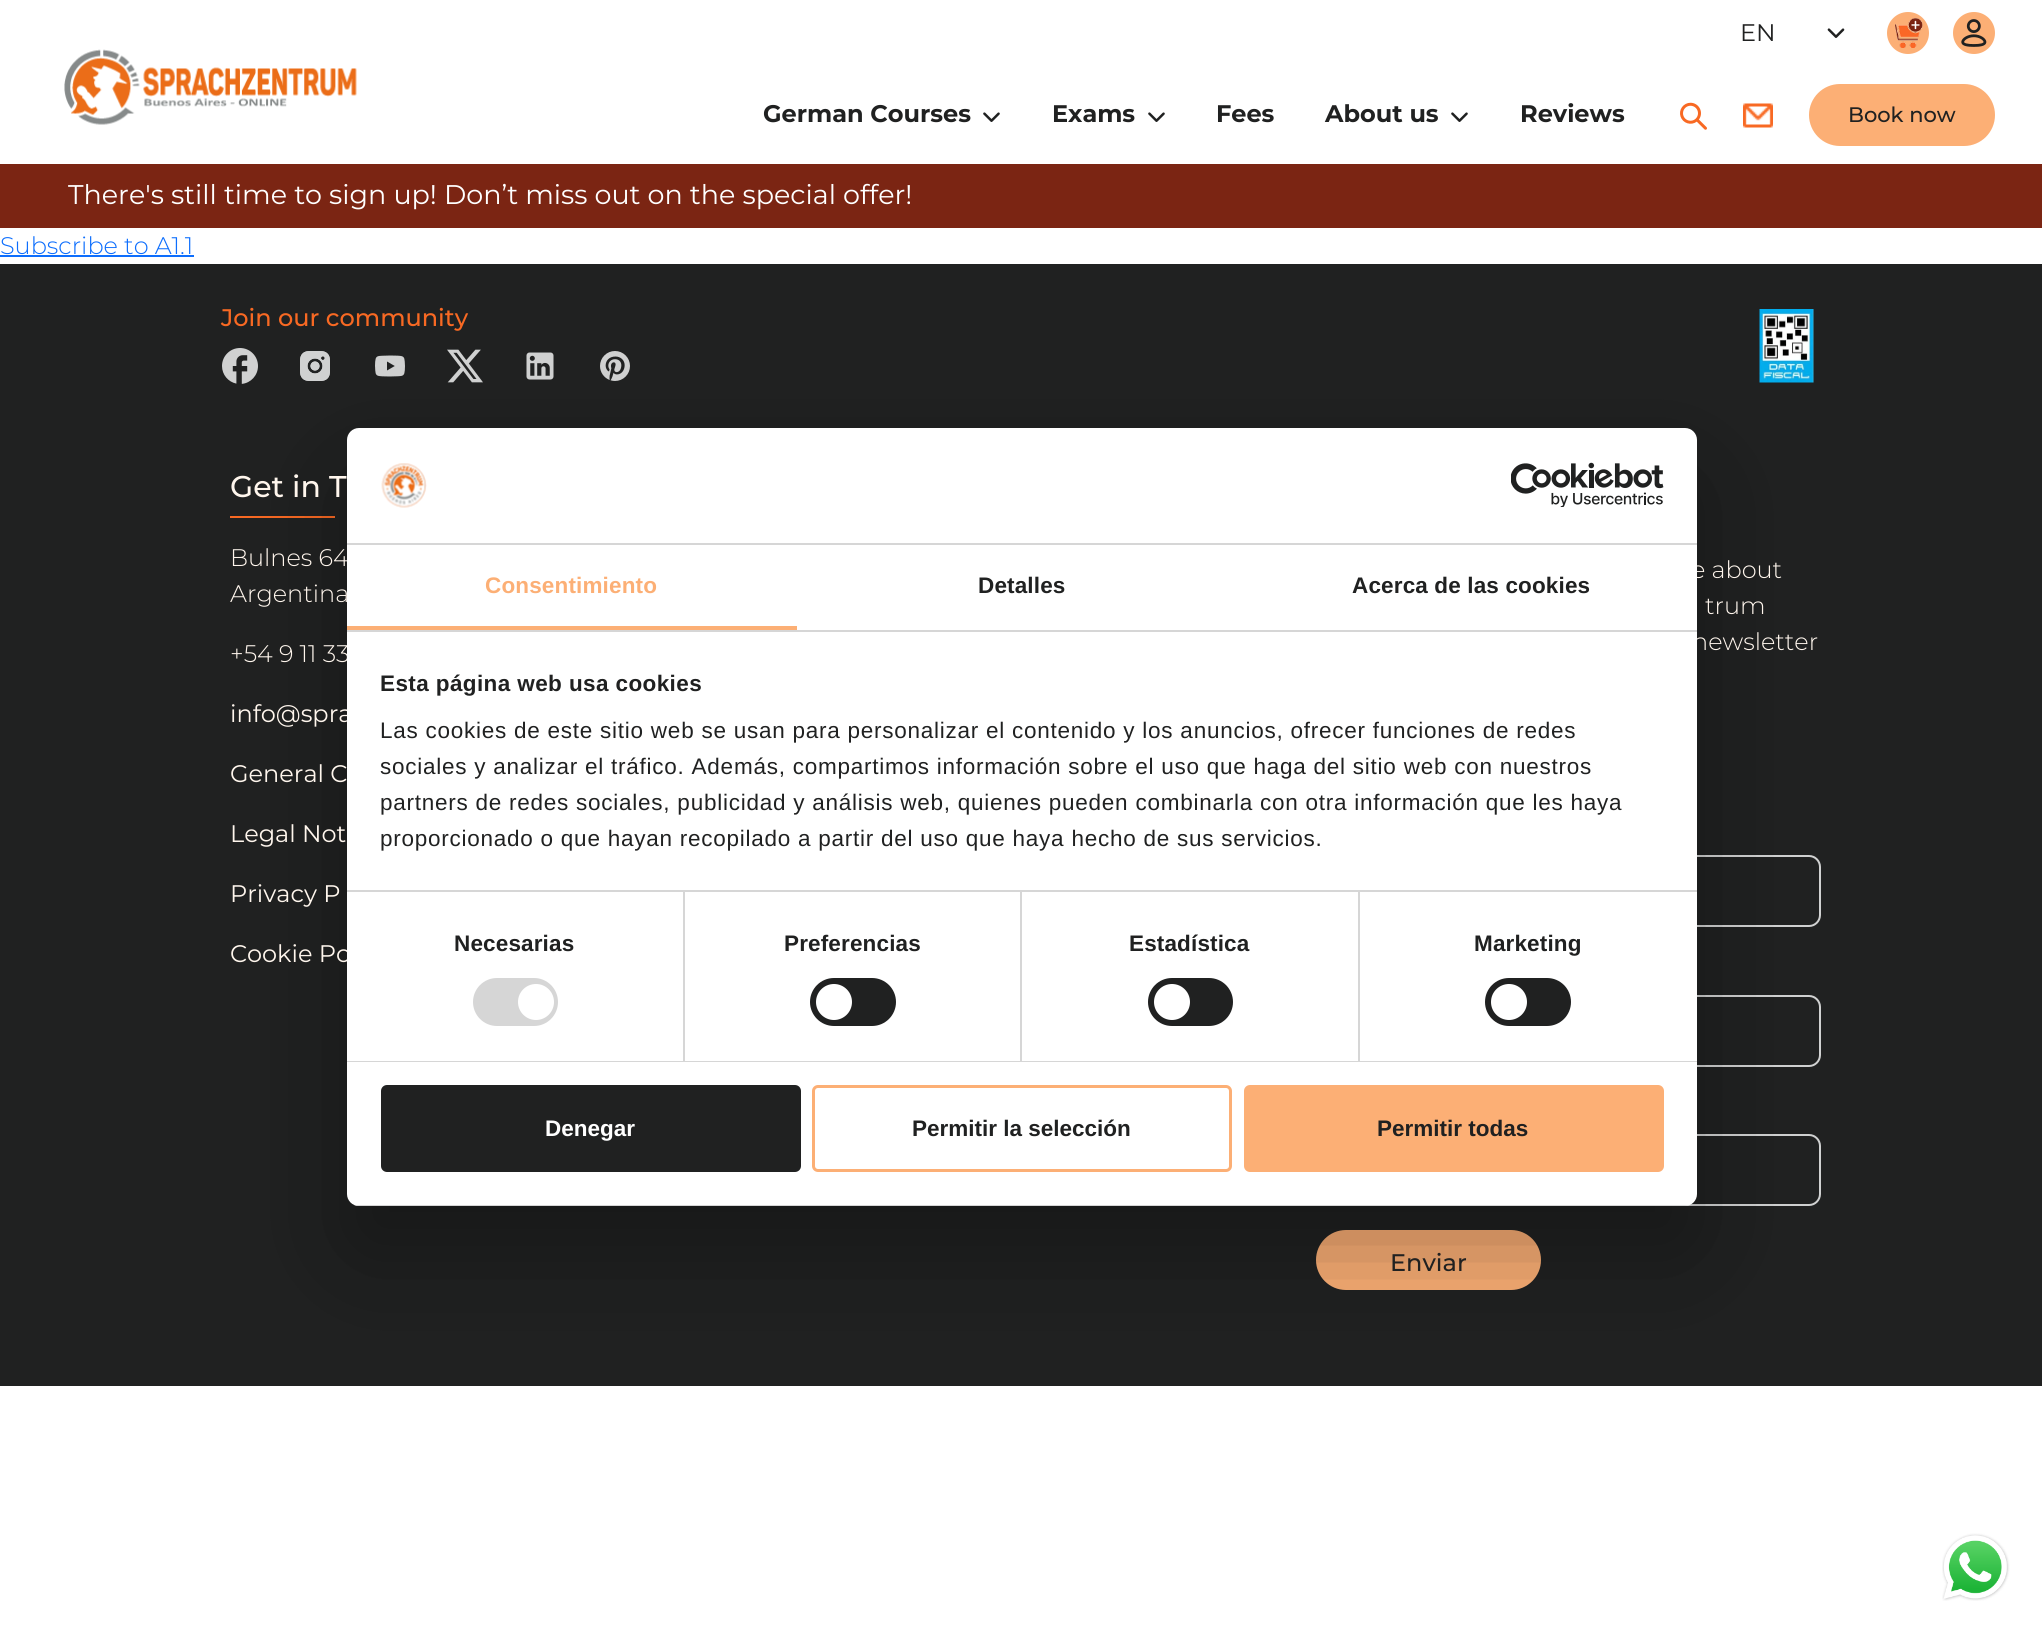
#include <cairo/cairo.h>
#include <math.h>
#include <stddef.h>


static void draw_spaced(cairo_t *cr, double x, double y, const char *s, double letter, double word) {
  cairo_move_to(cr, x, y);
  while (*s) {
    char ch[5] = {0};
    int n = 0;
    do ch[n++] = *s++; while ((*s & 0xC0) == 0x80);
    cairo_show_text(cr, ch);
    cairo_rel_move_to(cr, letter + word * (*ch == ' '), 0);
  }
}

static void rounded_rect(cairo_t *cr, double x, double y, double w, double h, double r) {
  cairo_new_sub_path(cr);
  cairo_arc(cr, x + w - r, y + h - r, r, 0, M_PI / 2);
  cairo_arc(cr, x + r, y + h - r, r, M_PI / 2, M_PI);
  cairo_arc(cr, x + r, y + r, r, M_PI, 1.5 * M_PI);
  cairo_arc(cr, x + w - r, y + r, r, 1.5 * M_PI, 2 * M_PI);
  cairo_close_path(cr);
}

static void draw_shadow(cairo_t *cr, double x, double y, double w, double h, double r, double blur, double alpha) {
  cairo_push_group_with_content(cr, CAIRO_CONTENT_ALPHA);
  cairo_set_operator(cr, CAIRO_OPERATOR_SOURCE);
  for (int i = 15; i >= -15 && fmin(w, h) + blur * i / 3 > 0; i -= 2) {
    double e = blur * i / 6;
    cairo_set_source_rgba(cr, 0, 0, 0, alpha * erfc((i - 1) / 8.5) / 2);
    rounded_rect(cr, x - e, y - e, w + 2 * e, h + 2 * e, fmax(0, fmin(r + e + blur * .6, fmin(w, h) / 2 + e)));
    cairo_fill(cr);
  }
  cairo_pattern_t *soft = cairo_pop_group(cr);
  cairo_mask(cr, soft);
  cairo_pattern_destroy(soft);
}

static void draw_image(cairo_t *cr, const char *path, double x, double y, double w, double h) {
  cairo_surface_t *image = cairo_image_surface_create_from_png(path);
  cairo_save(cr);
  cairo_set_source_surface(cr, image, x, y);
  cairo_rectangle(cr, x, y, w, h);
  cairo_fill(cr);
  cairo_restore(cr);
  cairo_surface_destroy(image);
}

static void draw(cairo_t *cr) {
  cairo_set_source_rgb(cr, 1, 1, 1);
  cairo_paint(cr);
  draw_image(cr, "images/1.png", 1827, 28, 18, 10);
  cairo_set_source_rgb(cr, 252 / 255.0, 175 / 255.0, 117 / 255.0);
  cairo_arc(cr, 1908, 33, 21, 0, 2 * M_PI);
  cairo_fill(cr);
  draw_image(cr, "images/2.png", 1895, 18, 28, 30);
  cairo_arc(cr, 1974, 33, 21, 0, 2 * M_PI);
  cairo_fill(cr);
  draw_image(cr, "images/3.png", 1961, 19, 26, 28);
  draw_image(cr, "images/4.png", 64, 49, 293, 76);
  draw_image(cr, "images/5.png", 983, 112, 17, 10);
  draw_image(cr, "images/5.png", 1148, 112, 17, 10);
  draw_image(cr, "images/5.png", 1451, 112, 17, 10);
  draw_image(cr, "images/6.png", 1680, 102, 27, 28);
  draw_image(cr, "images/7.png", 1743, 103, 30, 25);
  rounded_rect(cr, 1810.5, 85.5, 183, 59, 29.5);
  cairo_fill_preserve(cr);
  cairo_set_line_width(cr, 3);
  cairo_stroke(cr);
  cairo_set_source_rgb(cr, 123 / 255.0, 37 / 255.0, 19 / 255.0);
  cairo_rectangle(cr, 0, 164, 2042, 64);
  cairo_fill(cr);
  cairo_set_source_rgb(cr, 13 / 255.0, 110 / 255.0, 253 / 255.0);
  cairo_rectangle(cr, 0, 255, 194, 2);
  cairo_fill(cr);
  draw_image(cr, "images/8.png", 1942, 1533, 68, 68);
  cairo_set_source_rgb(cr, 32 / 255.0, 33 / 255.0, 33 / 255.0);
  cairo_rectangle(cr, 0, 264, 2042, 1122);
  cairo_fill(cr);
  draw_image(cr, "images/9.png", 222, 348, 36, 36);
  draw_image(cr, "images/10.png", 300, 351, 30, 30);
  draw_image(cr, "images/11.png", 375, 355, 30, 22);
  draw_image(cr, "images/12.png", 447, 349, 36, 34);
  draw_image(cr, "images/13.png", 526, 352, 28, 28);
  draw_image(cr, "images/14.png", 600, 351, 30, 30);
  draw_image(cr, "images/15.png", 1759, 309, 55, 74);
  cairo_set_source_rgb(cr, 248 / 255.0, 105 / 255.0, 35 / 255.0);
  cairo_rectangle(cr, 230, 516, 105, 2);
  cairo_fill(cr);
  rounded_rect(cr, 1317, 856, 503, 70, 11);
  cairo_set_source_rgb(cr, 208 / 255.0, 209 / 255.0, 209 / 255.0);
  cairo_set_line_width(cr, 2);
  cairo_stroke(cr);
  rounded_rect(cr, 1317, 996, 503, 70, 11);
  cairo_stroke(cr);
  rounded_rect(cr, 1317, 1135, 503, 70, 11);
  cairo_stroke(cr);
  cairo_set_source_rgb(cr, 252 / 255.0, 175 / 255.0, 117 / 255.0);
  rounded_rect(cr, 1316, 1230, 225, 60, 30);
  cairo_fill(cr);
  cairo_set_source_rgb(cr, 0, 0, 0);
  draw_shadow(cr, 347, 476, 1350, 778, 12, 51, 0.3);
  cairo_select_font_face(cr, "Montserrat", CAIRO_FONT_SLANT_NORMAL, CAIRO_FONT_WEIGHT_NORMAL);
  cairo_set_font_size(cr, 24);
  cairo_set_source_rgb(cr, 32 / 255.0, 33 / 255.0, 33 / 255.0);
  cairo_move_to(cr, 1740, 41);
  cairo_show_text(cr, "EN");
  cairo_select_font_face(cr, "Montserrat", CAIRO_FONT_SLANT_NORMAL, CAIRO_FONT_WEIGHT_BOLD);
  cairo_move_to(cr, 763, 122);
  cairo_show_text(cr, "German Courses");
  cairo_move_to(cr, 1052, 122);
  cairo_show_text(cr, "Exams");
  cairo_move_to(cr, 1216, 122);
  cairo_show_text(cr, "Fees");
  cairo_move_to(cr, 1325, 122);
  cairo_show_text(cr, "About us");
  cairo_move_to(cr, 1520, 122);
  cairo_show_text(cr, "Reviews");
  cairo_select_font_face(cr, "Montserrat Medium", CAIRO_FONT_SLANT_NORMAL, CAIRO_FONT_WEIGHT_NORMAL);
  cairo_set_font_size(cr, 21);
  cairo_move_to(cr, 1848, 122);
  cairo_show_text(cr, "Book now");
  cairo_select_font_face(cr, "Montserrat", CAIRO_FONT_SLANT_NORMAL, CAIRO_FONT_WEIGHT_NORMAL);
  cairo_set_font_size(cr, 27);
  cairo_set_source_rgb(cr, 1, 1, 1);
  cairo_move_to(cr, 68, 204);
  cairo_show_text(cr, "There's still time to sign up! Don’t miss out on the special offer!");
  cairo_select_font_face(cr, "Montserrat Light", CAIRO_FONT_SLANT_NORMAL, CAIRO_FONT_WEIGHT_NORMAL);
  cairo_set_font_size(cr, 24);
  cairo_set_source_rgb(cr, 13 / 255.0, 110 / 255.0, 253 / 255.0);
  cairo_move_to(cr, 0, 254);
  cairo_show_text(cr, "Subscribe to A1.1");
  cairo_select_font_face(cr, "Montserrat Medium", CAIRO_FONT_SLANT_NORMAL, CAIRO_FONT_WEIGHT_NORMAL);
  cairo_set_source_rgb(cr, 248 / 255.0, 105 / 255.0, 35 / 255.0);
  cairo_move_to(cr, 221, 326);
  cairo_show_text(cr, "Join our community");
  cairo_set_font_size(cr, 30);
  cairo_set_source_rgb(cr, 1, 246 / 255.0, 237 / 255.0);
  cairo_move_to(cr, 230, 497);
  cairo_show_text(cr, "Get in T");
  cairo_select_font_face(cr, "Montserrat Light", CAIRO_FONT_SLANT_NORMAL, CAIRO_FONT_WEIGHT_NORMAL);
  cairo_set_font_size(cr, 24);
  cairo_move_to(cr, 230, 566);
  cairo_show_text(cr, "Bulnes 64");
  cairo_move_to(cr, 230, 602);
  cairo_show_text(cr, "Argentina");
  cairo_move_to(cr, 230, 662);
  cairo_show_text(cr, "+54 9 11 33");
  cairo_select_font_face(cr, "Montserrat", CAIRO_FONT_SLANT_NORMAL, CAIRO_FONT_WEIGHT_NORMAL);
  cairo_move_to(cr, 230, 722);
  cairo_show_text(cr, "info@spra");
  cairo_move_to(cr, 230, 782);
  cairo_show_text(cr, "General C");
  cairo_move_to(cr, 230, 842);
  cairo_show_text(cr, "Legal Not");
  cairo_move_to(cr, 230, 902);
  cairo_show_text(cr, "Privacy P");
  cairo_move_to(cr, 230, 962);
  cairo_show_text(cr, "Cookie Po");
  cairo_select_font_face(cr, "Montserrat Light", CAIRO_FONT_SLANT_NORMAL, CAIRO_FONT_WEIGHT_NORMAL);
  cairo_move_to(cr, 1691, 578);
  cairo_show_text(cr, "e about");
  cairo_move_to(cr, 1705, 614);
  cairo_show_text(cr, "trum");
  cairo_move_to(cr, 1692, 650);
  cairo_show_text(cr, "newsletter");
  cairo_select_font_face(cr, "Montserrat Medium", CAIRO_FONT_SLANT_NORMAL, CAIRO_FONT_WEIGHT_NORMAL);
  cairo_set_source_rgb(cr, 32 / 255.0, 33 / 255.0, 33 / 255.0);
  cairo_move_to(cr, 1390, 1271);
  cairo_show_text(cr, "Enviar");
  cairo_set_source_rgb(cr, 1, 1, 1);
  rounded_rect(cr, 347, 428, 1350, 778, 12);
  cairo_fill(cr);
  cairo_set_source_rgb(cr, 214 / 255.0, 214 / 255.0, 214 / 255.0);
  cairo_rectangle(cr, 347, 543, 1350, 2);
  cairo_fill(cr);
  draw_image(cr, "images/16.png", 381, 463, 46, 45);
  draw_image(cr, "images/17.png", 1511, 462, 153, 45);
  cairo_rectangle(cr, 347, 630, 1350, 2);
  cairo_fill(cr);
  cairo_set_source_rgb(cr, 252 / 255.0, 175 / 255.0, 117 / 255.0);
  cairo_rectangle(cr, 347, 626, 450, 4);
  cairo_fill(cr);
  cairo_select_font_face(cr, "Liberation Sans", CAIRO_FONT_SLANT_NORMAL, CAIRO_FONT_WEIGHT_BOLD);
  cairo_set_font_size(cr, 22.5);
  draw_spaced(cr, 485, 593, "Consentimiento", 0.15, 0);
  cairo_set_source_rgb(cr, 32 / 255.0, 33 / 255.0, 33 / 255.0);
  draw_spaced(cr, 978, 593, "Detalles", 0.15, 0);
  draw_spaced(cr, 1352, 593, "Acerca de las cookies", 0.15, 0);
  draw_spaced(cr, 380, 691, "Esta página web usa cookies", 0.4, 0);
  cairo_select_font_face(cr, "Liberation Sans", CAIRO_FONT_SLANT_NORMAL, CAIRO_FONT_WEIGHT_NORMAL);
  draw_spaced(cr, 380, 738, "Las cookies de este sitio web se usan para personalizar el contenido y los anuncios, ofrecer funciones de redes", 0.75, 0);
  draw_spaced(cr, 380, 774, "sociales y analizar el tráfico. Además, compartimos información sobre el uso que haga del sitio web con nuestros", 0.75, 0);
  draw_spaced(cr, 380, 810, "partners de redes sociales, publicidad y análisis web, quienes pueden combinarla con otra información que les haya", 0.75, 0);
  draw_spaced(cr, 380, 846, "proporcionado o que hayan recopilado a partir del uso que haya hecho de sus servicios.", 0.75, 0);
  cairo_set_source_rgb(cr, 214 / 255.0, 214 / 255.0, 214 / 255.0);
  cairo_rectangle(cr, 347, 1061, 1350, 1);
  cairo_fill(cr);
  cairo_rectangle(cr, 683, 891, 2, 170);
  cairo_fill(cr);
  cairo_select_font_face(cr, "Liberation Sans", CAIRO_FONT_SLANT_NORMAL, CAIRO_FONT_WEIGHT_BOLD);
  cairo_set_source_rgb(cr, 32 / 255.0, 33 / 255.0, 33 / 255.0);
  draw_spaced(cr, 454, 951, "Necesarias", 0.15, 0);
  cairo_set_source_rgb(cr, 214 / 255.0, 214 / 255.0, 214 / 255.0);
  rounded_rect(cr, 473, 978, 85, 48, 24);
  cairo_fill(cr);
  cairo_set_source_rgb(cr, 1, 1, 1);
  cairo_arc(cr, 536, 1002, 18, 0, 2 * M_PI);
  cairo_fill(cr);
  cairo_set_source_rgb(cr, 214 / 255.0, 214 / 255.0, 214 / 255.0);
  cairo_rectangle(cr, 1020, 891, 2, 170);
  cairo_fill(cr);
  cairo_set_source_rgb(cr, 32 / 255.0, 33 / 255.0, 33 / 255.0);
  draw_spaced(cr, 784, 951, "Preferencias", 0.15, 0);
  rounded_rect(cr, 810, 978, 86, 48, 24);
  cairo_fill(cr);
  cairo_set_source_rgb(cr, 1, 1, 1);
  cairo_arc(cr, 834, 1002, 18, 0, 2 * M_PI);
  cairo_fill(cr);
  cairo_set_source_rgb(cr, 214 / 255.0, 214 / 255.0, 214 / 255.0);
  cairo_rectangle(cr, 1358, 891, 2, 170);
  cairo_fill(cr);
  cairo_rectangle(cr, 347, 890, 1350, 2);
  cairo_fill(cr);
  cairo_set_source_rgb(cr, 32 / 255.0, 33 / 255.0, 33 / 255.0);
  draw_spaced(cr, 1129, 951, "Estadística", 0.15, 0);
  rounded_rect(cr, 1148, 978, 85, 48, 24);
  cairo_fill(cr);
  cairo_set_source_rgb(cr, 1, 1, 1);
  cairo_arc(cr, 1172, 1002, 18, 0, 2 * M_PI);
  cairo_fill(cr);
  cairo_set_source_rgb(cr, 32 / 255.0, 33 / 255.0, 33 / 255.0);
  draw_spaced(cr, 1474, 951, "Marketing", 0.15, 0);
  rounded_rect(cr, 1485, 978, 86, 48, 24);
  cairo_fill(cr);
  cairo_set_source_rgb(cr, 1, 1, 1);
  cairo_arc(cr, 1509, 1002, 18, 0, 2 * M_PI);
  cairo_fill(cr);
  cairo_save(cr);
  rounded_rect(cr, 347, 428, 1350, 778, 12);
  cairo_clip(cr);
  cairo_set_source_rgb(cr, 214 / 255.0, 214 / 255.0, 214 / 255.0);
  cairo_rectangle(cr, 347, 1205, 1350, 1);
  cairo_fill(cr);
  cairo_restore(cr);
  cairo_set_source_rgb(cr, 32 / 255.0, 33 / 255.0, 33 / 255.0);
  rounded_rect(cr, 382.5, 1086.5, 417, 84, 4.5);
  cairo_fill_preserve(cr);
  cairo_set_line_width(cr, 3);
  cairo_stroke(cr);
  cairo_set_source_rgb(cr, 1, 1, 1);
  cairo_move_to(cr, 545, 1136);
  cairo_show_text(cr, "Denegar");
  rounded_rect(cr, 813.5, 1086.5, 417, 84, 4.5);
  cairo_set_source_rgb(cr, 252 / 255.0, 175 / 255.0, 117 / 255.0);
  cairo_stroke(cr);
  cairo_set_source_rgb(cr, 32 / 255.0, 33 / 255.0, 33 / 255.0);
  cairo_move_to(cr, 912, 1136);
  cairo_show_text(cr, "Permitir la selección");
  cairo_set_source_rgb(cr, 252 / 255.0, 175 / 255.0, 117 / 255.0);
  rounded_rect(cr, 1245.5, 1086.5, 417, 84, 4.5);
  cairo_fill_preserve(cr);
  cairo_stroke(cr);
  cairo_set_source_rgb(cr, 32 / 255.0, 33 / 255.0, 33 / 255.0);
  cairo_move_to(cr, 1377, 1136);
  cairo_show_text(cr, "Permitir todas");
}

int main(void) {
  cairo_surface_t *surface = cairo_image_surface_create(CAIRO_FORMAT_RGB24, 2042, 1635);
  cairo_t *cr = cairo_create(surface);
  cairo_font_options_t *options = cairo_font_options_create();
  cairo_font_options_set_hint_metrics(options, CAIRO_HINT_METRICS_OFF);
  cairo_font_options_set_hint_style(options, CAIRO_HINT_STYLE_NONE);
  cairo_set_font_options(cr, options);
  cairo_set_miter_limit(cr, 4);
  draw(cr);
  cairo_surface_write_to_png(surface, "out.png");
  cairo_font_options_destroy(options);
  cairo_destroy(cr);
  cairo_surface_destroy(surface);
  return 0;
}
